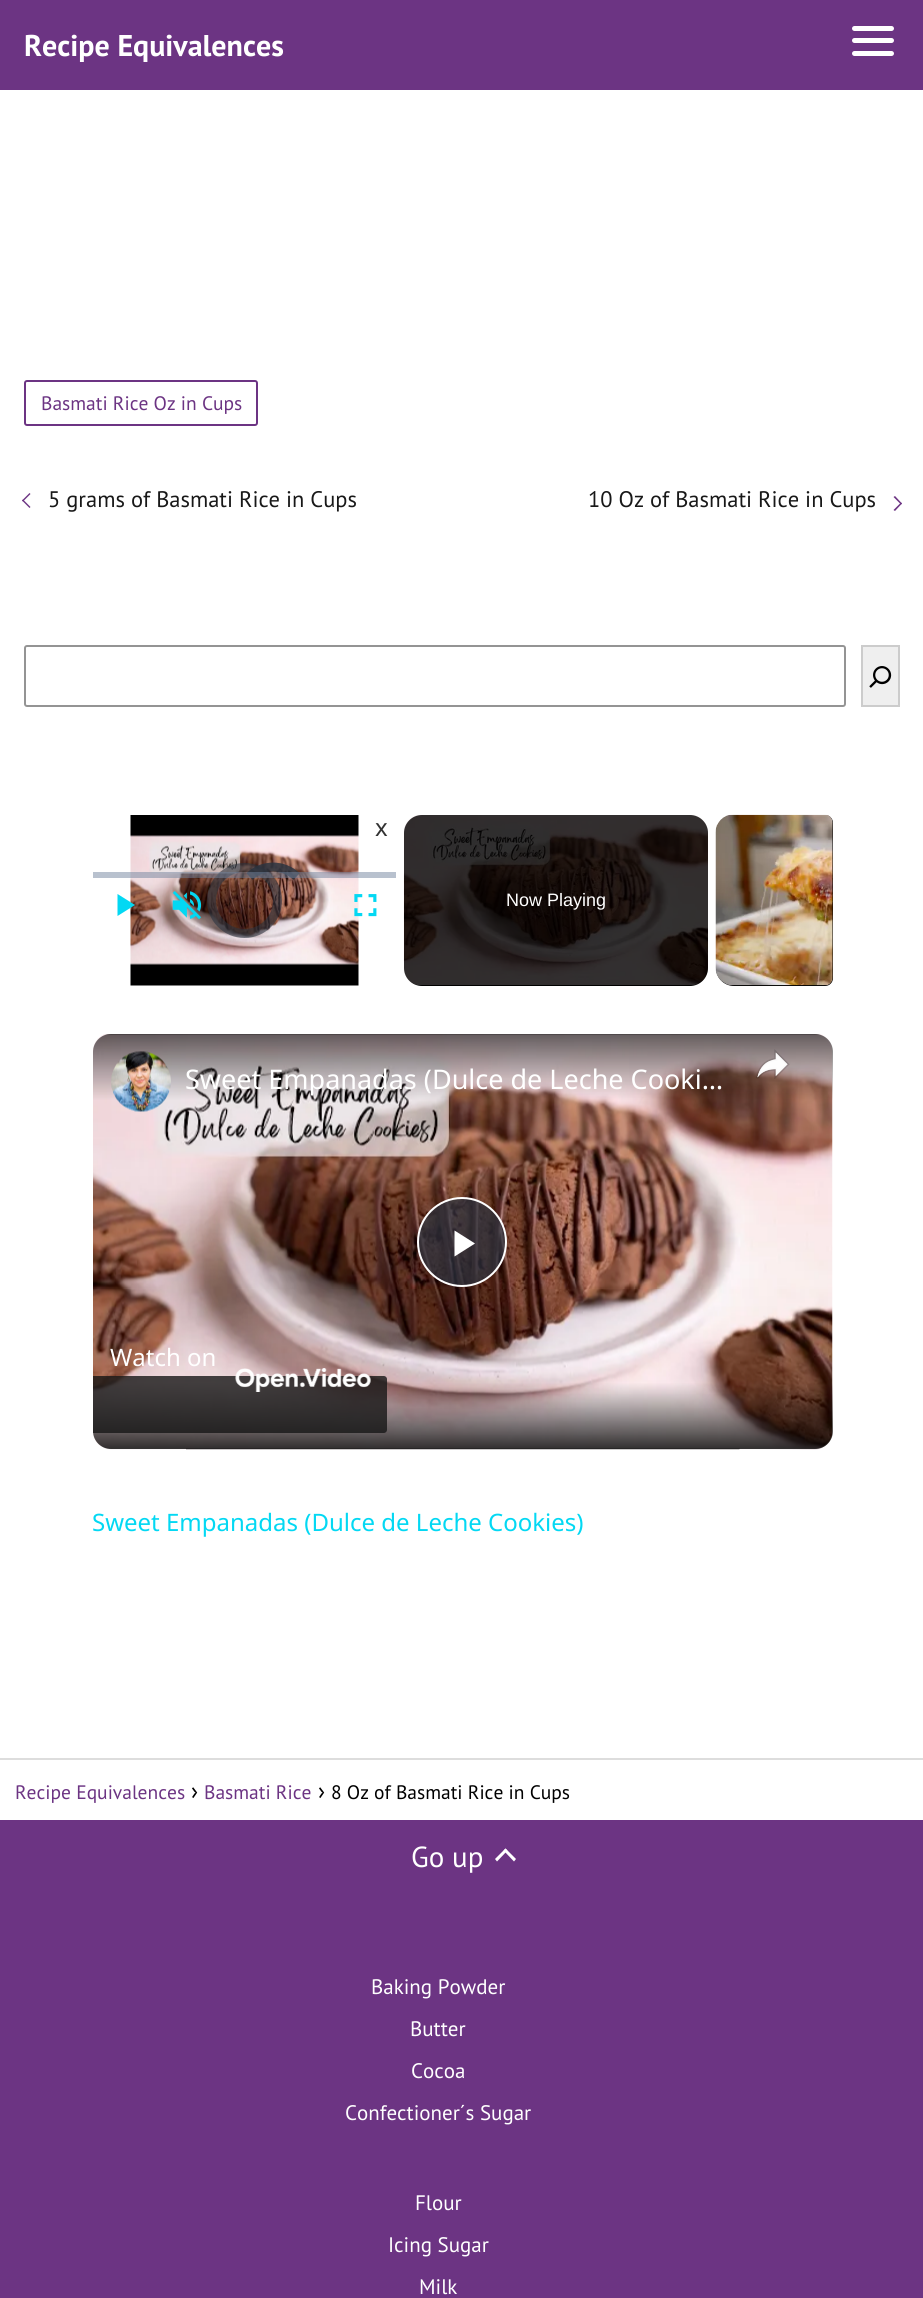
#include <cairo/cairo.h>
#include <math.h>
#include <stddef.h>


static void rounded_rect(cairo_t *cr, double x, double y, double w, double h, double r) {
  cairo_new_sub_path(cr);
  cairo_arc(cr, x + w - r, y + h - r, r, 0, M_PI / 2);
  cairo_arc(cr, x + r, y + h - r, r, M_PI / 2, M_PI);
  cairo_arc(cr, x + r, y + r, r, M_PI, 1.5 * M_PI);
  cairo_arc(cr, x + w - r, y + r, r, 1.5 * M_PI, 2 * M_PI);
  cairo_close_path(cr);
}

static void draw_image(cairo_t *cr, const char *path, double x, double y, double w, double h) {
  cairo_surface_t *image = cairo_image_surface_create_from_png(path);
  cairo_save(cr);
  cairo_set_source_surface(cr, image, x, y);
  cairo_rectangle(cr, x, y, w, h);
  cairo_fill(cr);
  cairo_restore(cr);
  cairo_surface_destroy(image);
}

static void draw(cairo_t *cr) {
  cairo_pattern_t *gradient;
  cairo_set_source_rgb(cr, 1, 1, 1);
  cairo_paint(cr);
  cairo_set_source_rgb(cr, 108 / 255.0, 52 / 255.0, 131 / 255.0);
  cairo_rectangle(cr, 0, 0, 923, 90);
  cairo_fill(cr);
  cairo_set_source_rgb(cr, 1, 1, 1);
  rounded_rect(cr, 852, 26, 42, 5, 2.5);
  cairo_fill(cr);
  rounded_rect(cr, 852, 38, 42, 5, 2.5);
  cairo_fill(cr);
  rounded_rect(cr, 852, 51, 42, 5, 2.5);
  cairo_fill(cr);
  rounded_rect(cr, 25, 381, 232, 44, 2);
  cairo_set_source_rgb(cr, 108 / 255.0, 52 / 255.0, 131 / 255.0);
  cairo_stroke(cr);
  cairo_new_path(cr);
  cairo_move_to(cr, 30.5, 507);
  cairo_line_to(cr, 29.5, 508);
  cairo_line_to(cr, 22, 500.5);
  cairo_line_to(cr, 23, 499.5);
  cairo_close_path(cr);
  cairo_fill(cr);
  cairo_new_path(cr);
  cairo_move_to(cr, 30.5, 494);
  cairo_line_to(cr, 23, 501.5);
  cairo_line_to(cr, 22, 500.5);
  cairo_line_to(cr, 29.5, 493);
  cairo_close_path(cr);
  cairo_fill(cr);
  cairo_new_path(cr);
  cairo_move_to(cr, 893.5, 497);
  cairo_line_to(cr, 895, 496);
  cairo_line_to(cr, 902, 503.5);
  cairo_line_to(cr, 901, 504.5);
  cairo_close_path(cr);
  cairo_fill(cr);
  cairo_new_path(cr);
  cairo_move_to(cr, 893.5, 510);
  cairo_line_to(cr, 901, 502.5);
  cairo_line_to(cr, 902, 503.5);
  cairo_line_to(cr, 895, 511);
  cairo_close_path(cr);
  cairo_fill(cr);
  rounded_rect(cr, 25, 646, 820, 60, 2);
  cairo_set_source_rgb(cr, 148 / 255.0, 148 / 255.0, 148 / 255.0);
  cairo_stroke(cr);
  cairo_set_source_rgb(cr, 239 / 255.0, 239 / 255.0, 239 / 255.0);
  cairo_rectangle(cr, 862, 646, 37, 60);
  cairo_fill_preserve(cr);
  cairo_set_source_rgb(cr, 204 / 255.0, 204 / 255.0, 204 / 255.0);
  cairo_stroke(cr);
  draw_image(cr, "images/1.png", 869, 666, 23, 22);
  draw_image(cr, "images/2.png", 130, 815, 229, 171);
  cairo_arc(cr, 244.5, 900.5, 33, 0, 2 * M_PI);
  cairo_set_source_rgba(cr, 43 / 255.0, 51 / 255.0, 63 / 255.0, 0.59);
  cairo_set_line_width(cr, 9);
  cairo_stroke(cr);
  cairo_new_path(cr);
  cairo_move_to(cr, 249.5, 876.5);
  cairo_curve_to(cr, 262.5, 864, 283.5, 864, 296.5, 876.5);
  cairo_stroke(cr);
  cairo_new_path(cr);
  cairo_move_to(cr, 249.5, 876.5);
  cairo_curve_to(cr, 262.5, 864, 283.5, 864, 296.5, 876.5);
  cairo_stroke(cr);
  cairo_set_source_rgba(cr, 115 / 255.0, 133 / 255.0, 159 / 255.0, 0.5);
  cairo_rectangle(cr, 93, 872, 303, 6);
  cairo_fill(cr);
  cairo_set_source_rgb(cr, 3 / 255.0, 216 / 255.0, 243 / 255.0);
  cairo_new_path(cr);
  cairo_move_to(cr, 117.5, 894);
  cairo_line_to(cr, 117.5, 916);
  cairo_line_to(cr, 135, 905);
  cairo_close_path(cr);
  cairo_fill(cr);
  draw_image(cr, "images/3.png", 172, 891, 30, 29);
  draw_image(cr, "images/4.png", 354, 894, 23, 23);
  cairo_set_source_rgb(cr, 0, 0, 0);
  rounded_rect(cr, 404, 815, 304, 171, 18);
  cairo_fill(cr);
  draw_image(cr, "images/5.png", 403, 815, 305, 170);
  cairo_new_path(cr);
  cairo_move_to(cr, 734, 815);
  cairo_line_to(cr, 825, 815);
  cairo_curve_to(cr, 829.5, 815, 833, 818.5, 833, 823);
  cairo_line_to(cr, 833, 978);
  cairo_curve_to(cr, 833, 982.5, 829.5, 986, 825, 986);
  cairo_line_to(cr, 734, 986);
  cairo_curve_to(cr, 724, 986, 716, 978, 716, 968);
  cairo_line_to(cr, 716, 833);
  cairo_curve_to(cr, 716, 823, 724, 815, 734, 815);
  cairo_close_path(cr);
  cairo_fill(cr);
  draw_image(cr, "images/6.png", 715, 814, 118, 172);
  draw_image(cr, "images/8.png", 186, 1448, 554, 2);
  draw_image(cr, "images/7.png", 93, 1034, 740, 416);
  cairo_set_source_rgba(cr, 43 / 255.0, 51 / 255.0, 63 / 255.0, 0.7);
  cairo_arc(cr, 462, 1242, 44, 0, 2 * M_PI);
  cairo_fill_preserve(cr);
  cairo_set_source_rgb(cr, 1, 1, 1);
  cairo_set_line_width(cr, 2);
  cairo_stroke(cr);
  cairo_new_path(cr);
  cairo_move_to(cr, 454.5, 1230.5);
  cairo_line_to(cr, 454.5, 1256.5);
  cairo_line_to(cr, 475, 1243.5);
  cairo_close_path(cr);
  cairo_fill(cr);
  gradient = cairo_pattern_create_linear(463, 1034, 463, 1449);
  cairo_pattern_add_color_stop_rgba(gradient, 0, 0, 0, 0, 0.6);
  cairo_pattern_add_color_stop_rgba(gradient, 0.16, 0, 0, 0, 0);
  cairo_pattern_add_color_stop_rgba(gradient, 0.84, 0, 0, 0, 0);
  cairo_pattern_add_color_stop_rgba(gradient, 1, 0, 0, 0, 0.8);
  cairo_set_source(cr, gradient);
  cairo_pattern_destroy(gradient);
  rounded_rect(cr, 93, 1034, 740, 415, 18);
  cairo_fill(cr);
  draw_image(cr, "images/9.png", 111, 1051, 60, 61);
  draw_image(cr, "images/10.png", 756, 1049, 34, 30);
  cairo_set_source_rgba(cr, 23 / 255.0, 23 / 255.0, 23 / 255.0, 0.8);
  cairo_new_path(cr);
  cairo_move_to(cr, 93, 1376);
  cairo_line_to(cr, 384, 1376);
  cairo_curve_to(cr, 385.5, 1376, 387, 1377.5, 387, 1379);
  cairo_line_to(cr, 387, 1430);
  cairo_curve_to(cr, 387, 1431.5, 385.5, 1433, 384, 1433);
  cairo_line_to(cr, 93, 1433);
  cairo_close_path(cr);
  cairo_fill(cr);
  draw_image(cr, "images/11.png", 235, 1368, 136, 24);
  cairo_set_source_rgb(cr, 221 / 255.0, 221 / 255.0, 221 / 255.0);
  cairo_rectangle(cr, 0, 1758, 923, 2);
  cairo_fill(cr);
  cairo_set_source_rgb(cr, 108 / 255.0, 52 / 255.0, 131 / 255.0);
  cairo_rectangle(cr, 0, 1820, 923, 478);
  cairo_fill(cr);
  cairo_set_source_rgb(cr, 1, 1, 1);
  cairo_new_path(cr);
  cairo_move_to(cr, 497, 1861.5);
  cairo_line_to(cr, 495, 1859);
  cairo_line_to(cr, 505.5, 1848.5);
  cairo_line_to(cr, 507.5, 1850.5);
  cairo_close_path(cr);
  cairo_fill(cr);
  cairo_new_path(cr);
  cairo_move_to(cr, 514, 1861.5);
  cairo_line_to(cr, 503.5, 1850.5);
  cairo_line_to(cr, 505.5, 1848.5);
  cairo_line_to(cr, 516, 1859);
  cairo_close_path(cr);
  cairo_fill(cr);
  cairo_select_font_face(cr, "PT Sans", CAIRO_FONT_SLANT_NORMAL, CAIRO_FONT_WEIGHT_BOLD);
  cairo_set_font_size(cr, 30);
  cairo_move_to(cr, 24, 56);
  cairo_show_text(cr, "Recipe Equivalences");
  cairo_select_font_face(cr, "PT Sans", CAIRO_FONT_SLANT_NORMAL, CAIRO_FONT_WEIGHT_NORMAL);
  cairo_set_font_size(cr, 19.5);
  cairo_set_source_rgb(cr, 108 / 255.0, 52 / 255.0, 131 / 255.0);
  cairo_move_to(cr, 41, 410);
  cairo_show_text(cr, "Basmati Rice Oz in Cups");
  cairo_set_font_size(cr, 22.5);
  cairo_set_source_rgb(cr, 24 / 255.0, 24 / 255.0, 24 / 255.0);
  cairo_move_to(cr, 48, 507);
  cairo_show_text(cr, "5 grams of Basmati Rice in Cups");
  cairo_move_to(cr, 588, 507);
  cairo_show_text(cr, "10 Oz of Basmati Rice in Cups");
  cairo_select_font_face(cr, "Noto Sans", CAIRO_FONT_SLANT_NORMAL, CAIRO_FONT_WEIGHT_NORMAL);
  cairo_set_font_size(cr, 24);
  cairo_set_source_rgb(cr, 51 / 255.0, 51 / 255.0, 51 / 255.0);
  cairo_move_to(cr, 375, 836);
  cairo_show_text(cr, "x");
  cairo_select_font_face(cr, "Liberation Sans", CAIRO_FONT_SLANT_NORMAL, CAIRO_FONT_WEIGHT_NORMAL);
  cairo_set_font_size(cr, 18);
  cairo_set_source_rgb(cr, 1, 1, 1);
  cairo_move_to(cr, 506, 906);
  cairo_show_text(cr, "Now Playing");
  cairo_select_font_face(cr, "Noto Sans", CAIRO_FONT_SLANT_NORMAL, CAIRO_FONT_WEIGHT_NORMAL);
  cairo_set_font_size(cr, 27);
  cairo_move_to(cr, 185, 1089);
  cairo_show_text(cr, "Sweet Empanadas (Dulce de Leche Cooki…");
  cairo_set_font_size(cr, 24);
  cairo_move_to(cr, 110, 1366);
  cairo_show_text(cr, "Watch on");
  cairo_set_source_rgb(cr, 3 / 255.0, 216 / 255.0, 243 / 255.0);
  cairo_move_to(cr, 92, 1531);
  cairo_show_text(cr, "Sweet Empanadas (Dulce de Leche Cookies)");
  cairo_select_font_face(cr, "PT Sans", CAIRO_FONT_SLANT_NORMAL, CAIRO_FONT_WEIGHT_NORMAL);
  cairo_set_font_size(cr, 19.5);
  cairo_set_source_rgb(cr, 108 / 255.0, 52 / 255.0, 131 / 255.0);
  cairo_move_to(cr, 15, 1799);
  cairo_show_text(cr, "Recipe Equivalences");
  cairo_set_font_size(cr, 24);
  cairo_set_source_rgb(cr, 0, 0, 0);
  cairo_move_to(cr, 191, 1799);
  cairo_show_text(cr, "›");
  cairo_set_font_size(cr, 19.5);
  cairo_set_source_rgb(cr, 108 / 255.0, 52 / 255.0, 131 / 255.0);
  cairo_move_to(cr, 204, 1799);
  cairo_show_text(cr, "Basmati Rice");
  cairo_set_font_size(cr, 24);
  cairo_set_source_rgb(cr, 0, 0, 0);
  cairo_move_to(cr, 318, 1799);
  cairo_show_text(cr, "›");
  cairo_set_font_size(cr, 19.5);
  cairo_move_to(cr, 331, 1799);
  cairo_show_text(cr, "8 Oz of Basmati Rice in Cups");
  cairo_set_font_size(cr, 29);
  cairo_set_source_rgb(cr, 1, 1, 1);
  cairo_move_to(cr, 411, 1867);
  cairo_show_text(cr, "Go up");
  cairo_set_font_size(cr, 21);
  cairo_move_to(cr, 371, 1994);
  cairo_show_text(cr, "Baking Powder");
  cairo_move_to(cr, 410, 2036);
  cairo_show_text(cr, "Butter");
  cairo_move_to(cr, 411, 2078);
  cairo_show_text(cr, "Cocoa");
  cairo_move_to(cr, 345, 2120);
  cairo_show_text(cr, "Confectioner´s Sugar");
  cairo_move_to(cr, 415, 2210);
  cairo_show_text(cr, "Flour");
  cairo_move_to(cr, 388, 2252);
  cairo_show_text(cr, "Icing Sugar");
  cairo_move_to(cr, 419, 2294);
  cairo_show_text(cr, "Milk");
}

int main(void) {
  cairo_surface_t *surface = cairo_image_surface_create(CAIRO_FORMAT_RGB24, 923, 2298);
  cairo_t *cr = cairo_create(surface);
  cairo_font_options_t *options = cairo_font_options_create();
  cairo_font_options_set_hint_metrics(options, CAIRO_HINT_METRICS_OFF);
  cairo_font_options_set_hint_style(options, CAIRO_HINT_STYLE_NONE);
  cairo_set_font_options(cr, options);
  cairo_set_miter_limit(cr, 4);
  draw(cr);
  cairo_surface_write_to_png(surface, "out.png");
  cairo_font_options_destroy(options);
  cairo_destroy(cr);
  cairo_surface_destroy(surface);
  return 0;
}
